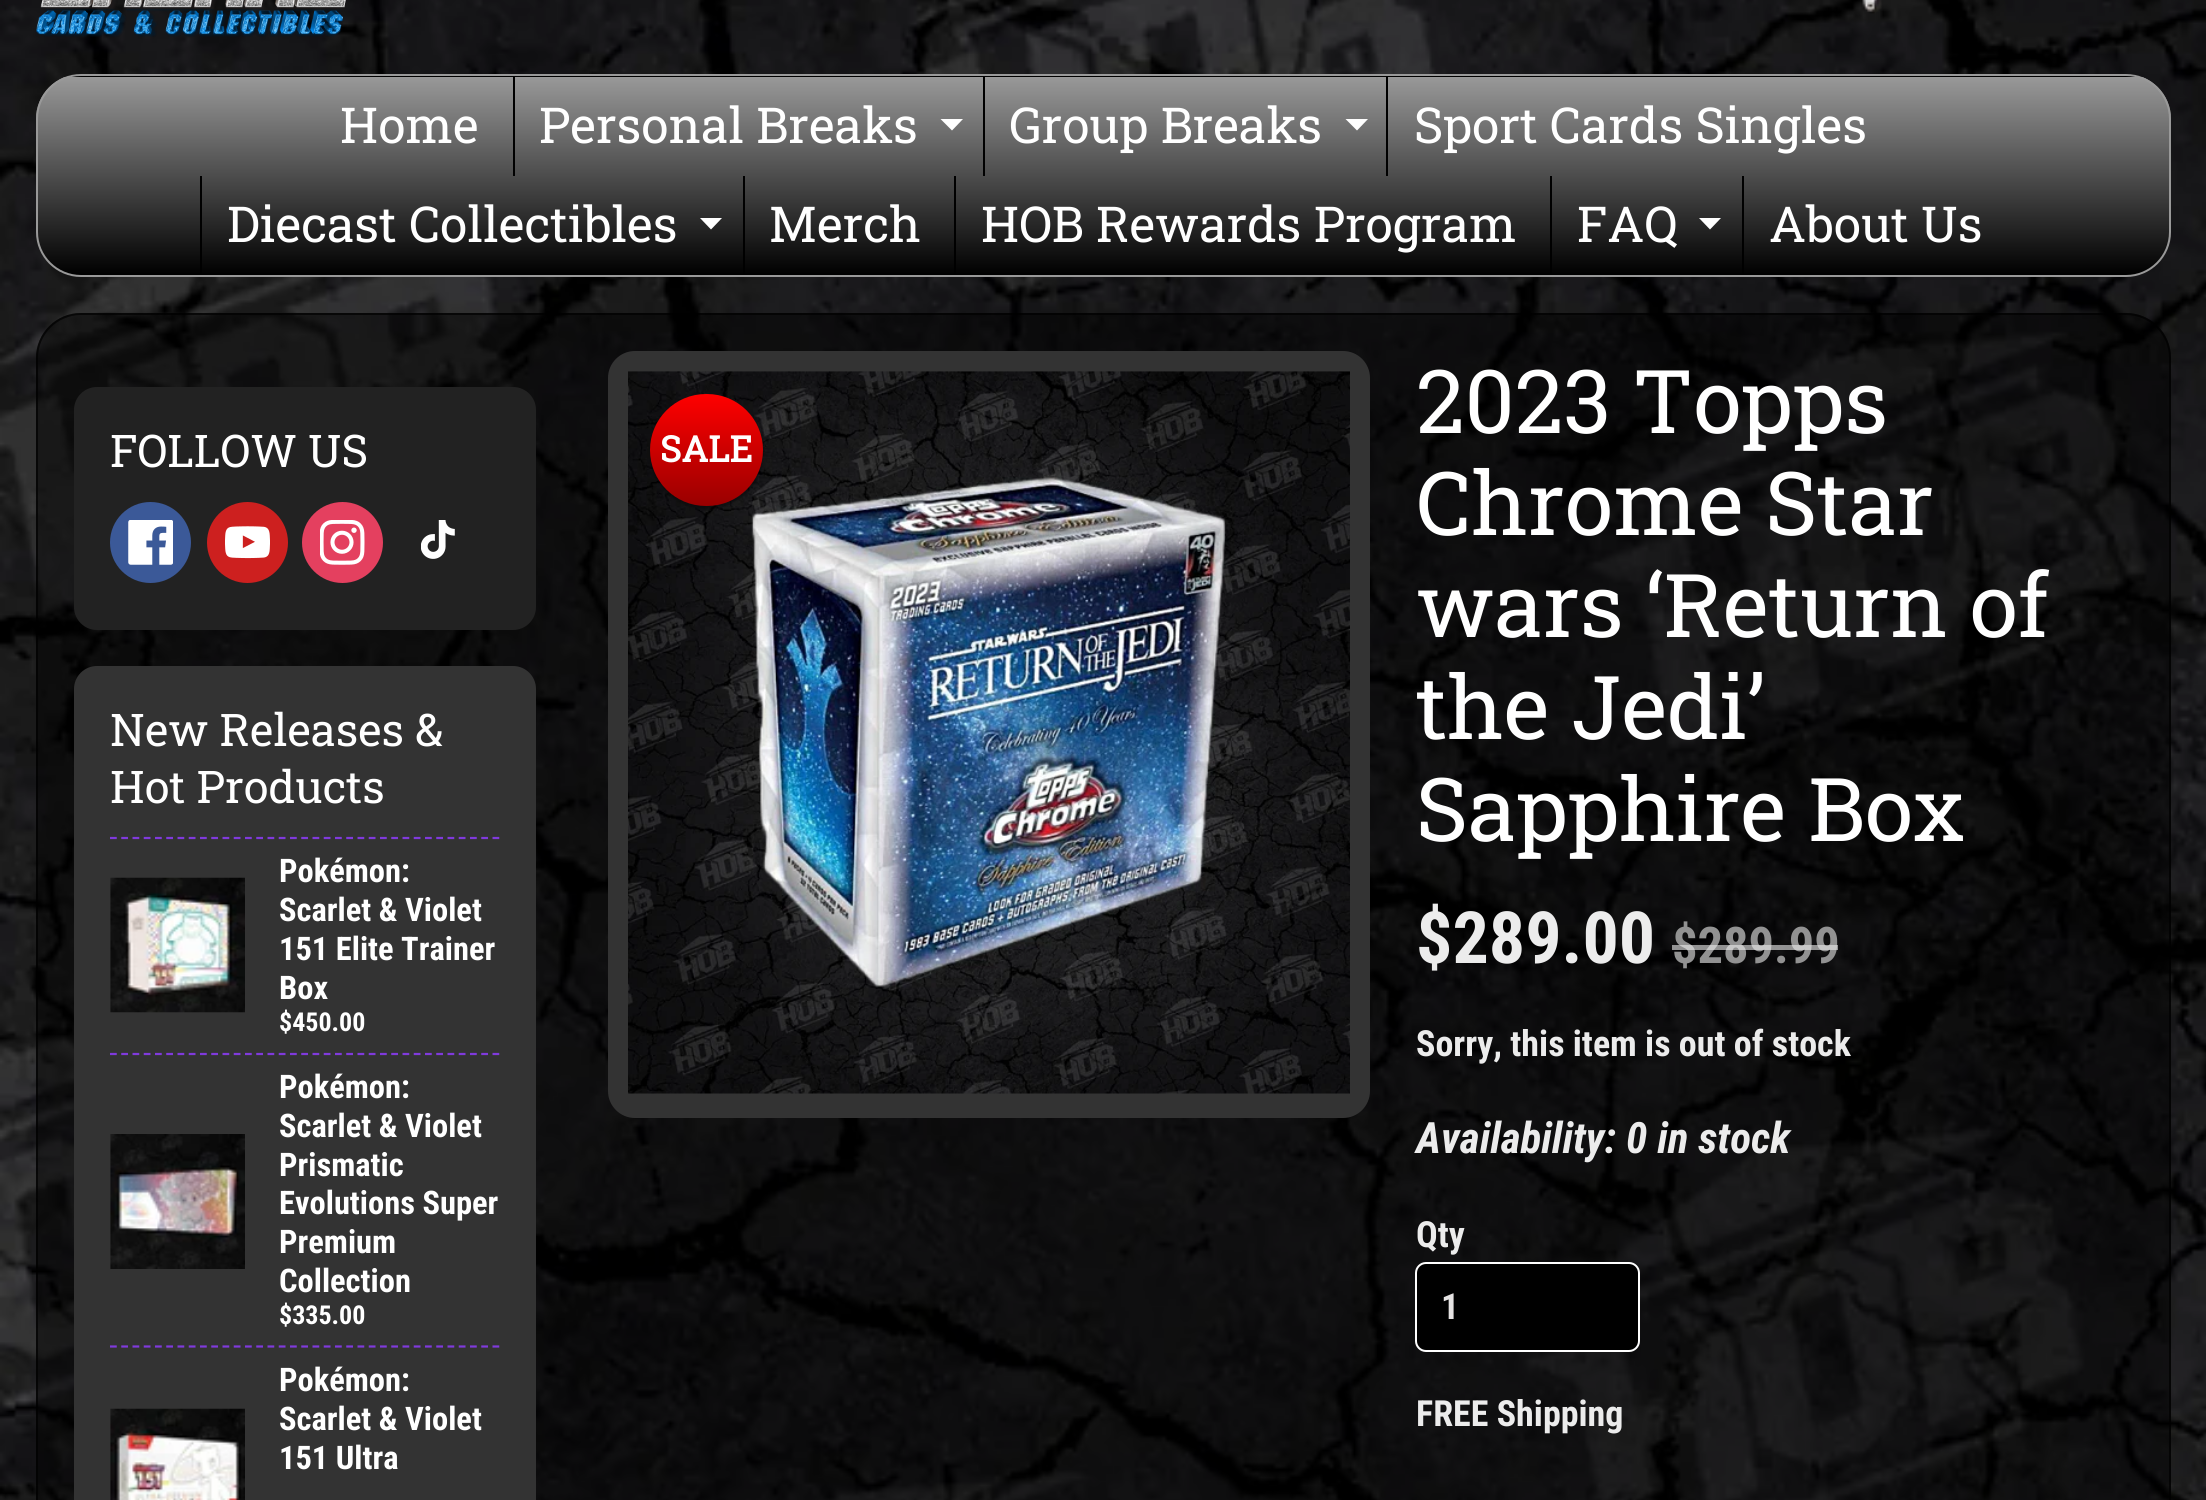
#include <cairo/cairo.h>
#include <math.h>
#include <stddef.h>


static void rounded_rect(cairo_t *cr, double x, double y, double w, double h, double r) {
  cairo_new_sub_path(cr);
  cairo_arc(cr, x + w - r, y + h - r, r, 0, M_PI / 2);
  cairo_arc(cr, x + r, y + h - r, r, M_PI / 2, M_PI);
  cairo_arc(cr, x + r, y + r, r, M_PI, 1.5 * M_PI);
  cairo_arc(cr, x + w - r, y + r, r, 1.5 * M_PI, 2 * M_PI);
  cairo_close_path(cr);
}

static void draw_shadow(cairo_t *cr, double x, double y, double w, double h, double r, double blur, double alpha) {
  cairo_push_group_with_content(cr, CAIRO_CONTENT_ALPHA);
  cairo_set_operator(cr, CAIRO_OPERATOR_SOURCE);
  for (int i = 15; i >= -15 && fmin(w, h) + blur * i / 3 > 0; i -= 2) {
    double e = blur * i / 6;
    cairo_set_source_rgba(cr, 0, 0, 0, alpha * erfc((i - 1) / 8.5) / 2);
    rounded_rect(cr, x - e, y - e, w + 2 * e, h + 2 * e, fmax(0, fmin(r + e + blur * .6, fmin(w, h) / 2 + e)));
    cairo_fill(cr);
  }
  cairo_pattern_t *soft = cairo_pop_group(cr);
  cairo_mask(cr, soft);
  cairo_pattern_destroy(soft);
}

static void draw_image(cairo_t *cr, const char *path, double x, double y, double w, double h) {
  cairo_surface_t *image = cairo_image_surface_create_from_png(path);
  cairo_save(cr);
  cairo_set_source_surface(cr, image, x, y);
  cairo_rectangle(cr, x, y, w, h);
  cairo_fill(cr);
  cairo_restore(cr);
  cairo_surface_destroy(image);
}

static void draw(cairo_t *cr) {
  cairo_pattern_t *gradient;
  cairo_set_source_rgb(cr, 1, 1, 1);
  cairo_paint(cr);
  draw_image(cr, "images/1.png", 0, 0, 2206, 1500);
  draw_image(cr, "images/2.png", 36, 0, 310, 37);
  draw_image(cr, "images/3.png", 1862, 0, 20, 14);
  cairo_save(cr);
  rounded_rect(cr, 36, 74, 2135, 203, 45);
  cairo_clip(cr);
  gradient = cairo_pattern_create_linear(1104, -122, 1104, 77);
  cairo_pattern_add_color_stop_rgba(gradient, 0, 153 / 255.0, 153 / 255.0, 153 / 255.0, 1);
  cairo_pattern_add_color_stop_rgba(gradient, 1, 0, 0, 0, 1);
  cairo_set_source(cr, gradient);
  cairo_pattern_destroy(gradient);
  cairo_rectangle(cr, 65, 74, 2077, 3);
  cairo_fill(cr);
  gradient = cairo_pattern_create_linear(1104, 76, 1104, 275);
  cairo_pattern_add_color_stop_rgba(gradient, 0, 153 / 255.0, 153 / 255.0, 153 / 255.0, 1);
  cairo_pattern_add_color_stop_rgba(gradient, 1, 0, 0, 0, 1);
  cairo_set_source(cr, gradient);
  cairo_pattern_destroy(gradient);
  cairo_rectangle(cr, 36, 77, 2135, 198);
  cairo_fill(cr);
  cairo_restore(cr);
  rounded_rect(cr, 37, 75, 2133, 201, 44);
  cairo_set_source_rgb(cr, 153 / 255.0, 153 / 255.0, 153 / 255.0);
  cairo_stroke(cr);
  cairo_set_source_rgb(cr, 0, 0, 0);
  cairo_rectangle(cr, 513, 77, 2, 99);
  cairo_fill(cr);
  cairo_set_source_rgb(cr, 1, 1, 1);
  cairo_new_path(cr);
  cairo_move_to(cr, 940.5, 119);
  cairo_line_to(cr, 963, 119);
  cairo_line_to(cr, 952, 130.5);
  cairo_close_path(cr);
  cairo_fill(cr);
  cairo_set_source_rgb(cr, 0, 0, 0);
  cairo_rectangle(cr, 983, 77, 2, 99);
  cairo_fill(cr);
  cairo_set_source_rgb(cr, 1, 1, 1);
  cairo_new_path(cr);
  cairo_move_to(cr, 1345.5, 119);
  cairo_line_to(cr, 1368, 119);
  cairo_line_to(cr, 1357, 130.5);
  cairo_close_path(cr);
  cairo_fill(cr);
  cairo_set_source_rgb(cr, 0, 0, 0);
  cairo_rectangle(cr, 1386, 77, 2, 99);
  cairo_fill(cr);
  cairo_rectangle(cr, 200, 176, 2, 99);
  cairo_fill(cr);
  cairo_set_source_rgb(cr, 1, 1, 1);
  cairo_new_path(cr);
  cairo_move_to(cr, 700, 218);
  cairo_line_to(cr, 722, 218);
  cairo_line_to(cr, 711, 229.5);
  cairo_close_path(cr);
  cairo_fill(cr);
  cairo_set_source_rgb(cr, 0, 0, 0);
  cairo_rectangle(cr, 743, 176, 2, 99);
  cairo_fill(cr);
  cairo_rectangle(cr, 954, 176, 2, 99);
  cairo_fill(cr);
  cairo_rectangle(cr, 1550, 176, 2, 99);
  cairo_fill(cr);
  cairo_set_source_rgb(cr, 1, 1, 1);
  cairo_new_path(cr);
  cairo_move_to(cr, 1699, 218);
  cairo_line_to(cr, 1721, 218);
  cairo_line_to(cr, 1710, 229.5);
  cairo_close_path(cr);
  cairo_fill(cr);
  cairo_set_source_rgb(cr, 0, 0, 0);
  cairo_rectangle(cr, 1742, 176, 2, 99);
  cairo_fill(cr);
  cairo_set_source_rgba(cr, 0, 0, 0, 0.5);
  rounded_rect(cr, 36, 313, 2135, 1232, 45);
  cairo_fill(cr);
  rounded_rect(cr, 37, 314, 2133, 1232, 44);
  cairo_set_source_rgba(cr, 0, 0, 0, 0.7);
  cairo_stroke(cr);
  cairo_set_source_rgb(cr, 34 / 255.0, 34 / 255.0, 34 / 255.0);
  rounded_rect(cr, 74, 387, 462, 243, 23);
  cairo_fill(cr);
  cairo_set_source_rgb(cr, 59 / 255.0, 89 / 255.0, 152 / 255.0);
  cairo_arc(cr, 150.5, 542.5, 40.5, 0, 2 * M_PI);
  cairo_fill(cr);
  draw_image(cr, "images/4.png", 128, 520, 45, 45);
  cairo_set_source_rgb(cr, 205 / 255.0, 32 / 255.0, 31 / 255.0);
  cairo_arc(cr, 247.5, 542.5, 40.5, 0, 2 * M_PI);
  cairo_fill(cr);
  draw_image(cr, "images/5.png", 225, 526, 45, 33);
  cairo_set_source_rgb(cr, 228 / 255.0, 64 / 255.0, 95 / 255.0);
  cairo_arc(cr, 342.5, 542.5, 40.5, 0, 2 * M_PI);
  cairo_fill(cr);
  draw_image(cr, "images/6.png", 320, 520, 45, 45);
  draw_image(cr, "images/7.png", 421, 520, 34, 39);
  cairo_set_source_rgb(cr, 51 / 255.0, 51 / 255.0, 51 / 255.0);
  rounded_rect(cr, 74, 666, 462, 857, 23);
  cairo_fill(cr);
  cairo_new_path(cr);
  cairo_move_to(cr, 110, 838);
  cairo_line_to(cr, 499.5, 838);
  cairo_set_source_rgb(cr, 128 / 255.0, 58 / 255.0, 220 / 255.0);
  cairo_set_line_width(cr, 2.2);
  cairo_set_dash(cr, (double[]){6.75, 4.5}, 2, 0);
  cairo_stroke(cr);
  draw_image(cr, "images/8.png", 110, 877, 135, 136);
  cairo_new_path(cr);
  cairo_move_to(cr, 110, 1054);
  cairo_line_to(cr, 499.5, 1054);
  cairo_stroke(cr);
  draw_image(cr, "images/9.png", 110, 1134, 135, 135);
  cairo_new_path(cr);
  cairo_move_to(cr, 110, 1346.5);
  cairo_line_to(cr, 499.5, 1346.5);
  cairo_stroke(cr);
  draw_image(cr, "images/10.png", 110, 1408, 135, 92);
  cairo_set_source_rgb(cr, 51 / 255.0, 51 / 255.0, 51 / 255.0);
  rounded_rect(cr, 608, 351, 762, 767, 27);
  cairo_fill(cr);
  draw_image(cr, "images/11.png", 628, 371, 722, 723);
  cairo_set_source_rgb(cr, 0, 0, 0);
  draw_shadow(cr, 650, 396, 113, 113, 56.5, 1, 0.3);
  gradient = cairo_pattern_create_linear(707, 394, 707, 506);
  cairo_pattern_add_color_stop_rgba(gradient, 0, 1, 0, 0, 1);
  cairo_pattern_add_color_stop_rgba(gradient, 1, 153 / 255.0, 0, 0, 1);
  cairo_set_source(cr, gradient);
  cairo_pattern_destroy(gradient);
  rounded_rect(cr, 650, 394, 113, 112, 56);
  cairo_fill(cr);
  cairo_set_source_rgb(cr, 0, 0, 0);
  rounded_rect(cr, 1416, 1263, 223, 88, 10);
  cairo_fill_preserve(cr);
  cairo_set_source_rgb(cr, 1, 1, 1);
  cairo_set_line_width(cr, 2);
  cairo_set_dash(cr, NULL, 0, 0);
  cairo_stroke(cr);
  cairo_select_font_face(cr, "Roboto Slab", CAIRO_FONT_SLANT_NORMAL, CAIRO_FONT_WEIGHT_NORMAL);
  cairo_set_font_size(cr, 49.5);
  cairo_move_to(cr, 340, 143);
  cairo_show_text(cr, "Home");
  cairo_move_to(cr, 539, 143);
  cairo_show_text(cr, "Personal Breaks");
  cairo_move_to(cr, 1009, 143);
  cairo_show_text(cr, "Group Breaks");
  cairo_move_to(cr, 1414, 143);
  cairo_show_text(cr, "Sport Cards Singles");
  cairo_move_to(cr, 227, 242);
  cairo_show_text(cr, "Diecast Collectibles");
  cairo_move_to(cr, 769, 242);
  cairo_show_text(cr, "Merch");
  cairo_move_to(cr, 981, 242);
  cairo_show_text(cr, "HOB Rewards Program");
  cairo_move_to(cr, 1577, 242);
  cairo_show_text(cr, "FAQ");
  cairo_move_to(cr, 1769, 242);
  cairo_show_text(cr, "About Us");
  cairo_set_font_size(cr, 45);
  cairo_move_to(cr, 110, 467);
  cairo_show_text(cr, "FOLLOW US");
  cairo_move_to(cr, 110, 746);
  cairo_show_text(cr, "New Releases &");
  cairo_move_to(cr, 110, 803);
  cairo_show_text(cr, "Hot Products");
  cairo_select_font_face(cr, "Roboto Condensed", CAIRO_FONT_SLANT_NORMAL, CAIRO_FONT_WEIGHT_BOLD);
  cairo_set_font_size(cr, 32.5);
  cairo_move_to(cr, 279, 882);
  cairo_show_text(cr, "Pokémon:");
  cairo_move_to(cr, 279, 921);
  cairo_show_text(cr, "Scarlet & Violet");
  cairo_move_to(cr, 279, 960);
  cairo_show_text(cr, "151 Elite Trainer");
  cairo_move_to(cr, 279, 999);
  cairo_show_text(cr, "Box");
  cairo_set_font_size(cr, 26);
  cairo_move_to(cr, 279, 1031);
  cairo_show_text(cr, "$450.00");
  cairo_set_font_size(cr, 32.5);
  cairo_move_to(cr, 279, 1098);
  cairo_show_text(cr, "Pokémon:");
  cairo_move_to(cr, 279, 1137);
  cairo_show_text(cr, "Scarlet & Violet");
  cairo_move_to(cr, 279, 1176);
  cairo_show_text(cr, "Prismatic");
  cairo_move_to(cr, 279, 1214);
  cairo_show_text(cr, "Evolutions Super");
  cairo_move_to(cr, 279, 1253);
  cairo_show_text(cr, "Premium");
  cairo_move_to(cr, 279, 1292);
  cairo_show_text(cr, "Collection");
  cairo_set_font_size(cr, 26);
  cairo_move_to(cr, 279, 1324);
  cairo_show_text(cr, "$335.00");
  cairo_set_font_size(cr, 32.5);
  cairo_move_to(cr, 279, 1391);
  cairo_show_text(cr, "Pokémon:");
  cairo_move_to(cr, 279, 1430);
  cairo_show_text(cr, "Scarlet & Violet");
  cairo_move_to(cr, 279, 1469);
  cairo_show_text(cr, "151 Ultra");
  cairo_select_font_face(cr, "Roboto Slab", CAIRO_FONT_SLANT_NORMAL, CAIRO_FONT_WEIGHT_BOLD);
  cairo_set_font_size(cr, 36);
  cairo_move_to(cr, 660, 462);
  cairo_show_text(cr, "SALE");
  cairo_select_font_face(cr, "Roboto Slab", CAIRO_FONT_SLANT_NORMAL, CAIRO_FONT_WEIGHT_NORMAL);
  cairo_set_font_size(cr, 88);
  cairo_move_to(cr, 1416, 433);
  cairo_show_text(cr, "2023 Topps");
  cairo_move_to(cr, 1416, 535);
  cairo_show_text(cr, "Chrome Star");
  cairo_move_to(cr, 1416, 637);
  cairo_show_text(cr, "wars ‘Return of");
  cairo_move_to(cr, 1416, 739);
  cairo_show_text(cr, "the Jedi’");
  cairo_move_to(cr, 1416, 841);
  cairo_show_text(cr, "Sapphire Box");
  cairo_select_font_face(cr, "Roboto Condensed", CAIRO_FONT_SLANT_NORMAL, CAIRO_FONT_WEIGHT_BOLD);
  cairo_set_font_size(cr, 72);
  cairo_set_source_rgb(cr, 236 / 255.0, 236 / 255.0, 236 / 255.0);
  cairo_move_to(cr, 1416, 963);
  cairo_show_text(cr, "$289.00");
  cairo_set_font_size(cr, 50.5);
  cairo_set_source_rgb(cr, 146 / 255.0, 146 / 255.0, 146 / 255.0);
  cairo_move_to(cr, 1672, 963);
  cairo_show_text(cr, "$289.99");
  cairo_set_source_rgba(cr, 236 / 255.0, 236 / 255.0, 236 / 255.0, 0.6);
  cairo_rectangle(cr, 1672, 945, 166, 5);
  cairo_fill(cr);
  cairo_set_font_size(cr, 36);
  cairo_set_source_rgb(cr, 236 / 255.0, 236 / 255.0, 236 / 255.0);
  cairo_move_to(cr, 1416, 1056);
  cairo_show_text(cr, "Sorry, this item is out of stock");
  cairo_select_font_face(cr, "Roboto Condensed", CAIRO_FONT_SLANT_ITALIC, CAIRO_FONT_WEIGHT_BOLD);
  cairo_set_font_size(cr, 43.25);
  cairo_move_to(cr, 1416, 1153);
  cairo_show_text(cr, "Availability: 0 in stock");
  cairo_select_font_face(cr, "Roboto Condensed", CAIRO_FONT_SLANT_NORMAL, CAIRO_FONT_WEIGHT_BOLD);
  cairo_set_font_size(cr, 36);
  cairo_move_to(cr, 1416, 1247);
  cairo_show_text(cr, "Qty");
  cairo_set_source_rgb(cr, 229 / 255.0, 227 / 255.0, 227 / 255.0);
  cairo_move_to(cr, 1441, 1319);
  cairo_show_text(cr, "1");
  cairo_set_source_rgb(cr, 236 / 255.0, 236 / 255.0, 236 / 255.0);
  cairo_move_to(cr, 1416, 1426);
  cairo_show_text(cr, "FREE Shipping");
}

int main(void) {
  cairo_surface_t *surface = cairo_image_surface_create(CAIRO_FORMAT_RGB24, 2206, 1500);
  cairo_t *cr = cairo_create(surface);
  cairo_font_options_t *options = cairo_font_options_create();
  cairo_font_options_set_hint_metrics(options, CAIRO_HINT_METRICS_OFF);
  cairo_font_options_set_hint_style(options, CAIRO_HINT_STYLE_NONE);
  cairo_set_font_options(cr, options);
  cairo_set_miter_limit(cr, 4);
  draw(cr);
  cairo_surface_write_to_png(surface, "out.png");
  cairo_font_options_destroy(options);
  cairo_destroy(cr);
  cairo_surface_destroy(surface);
  return 0;
}
